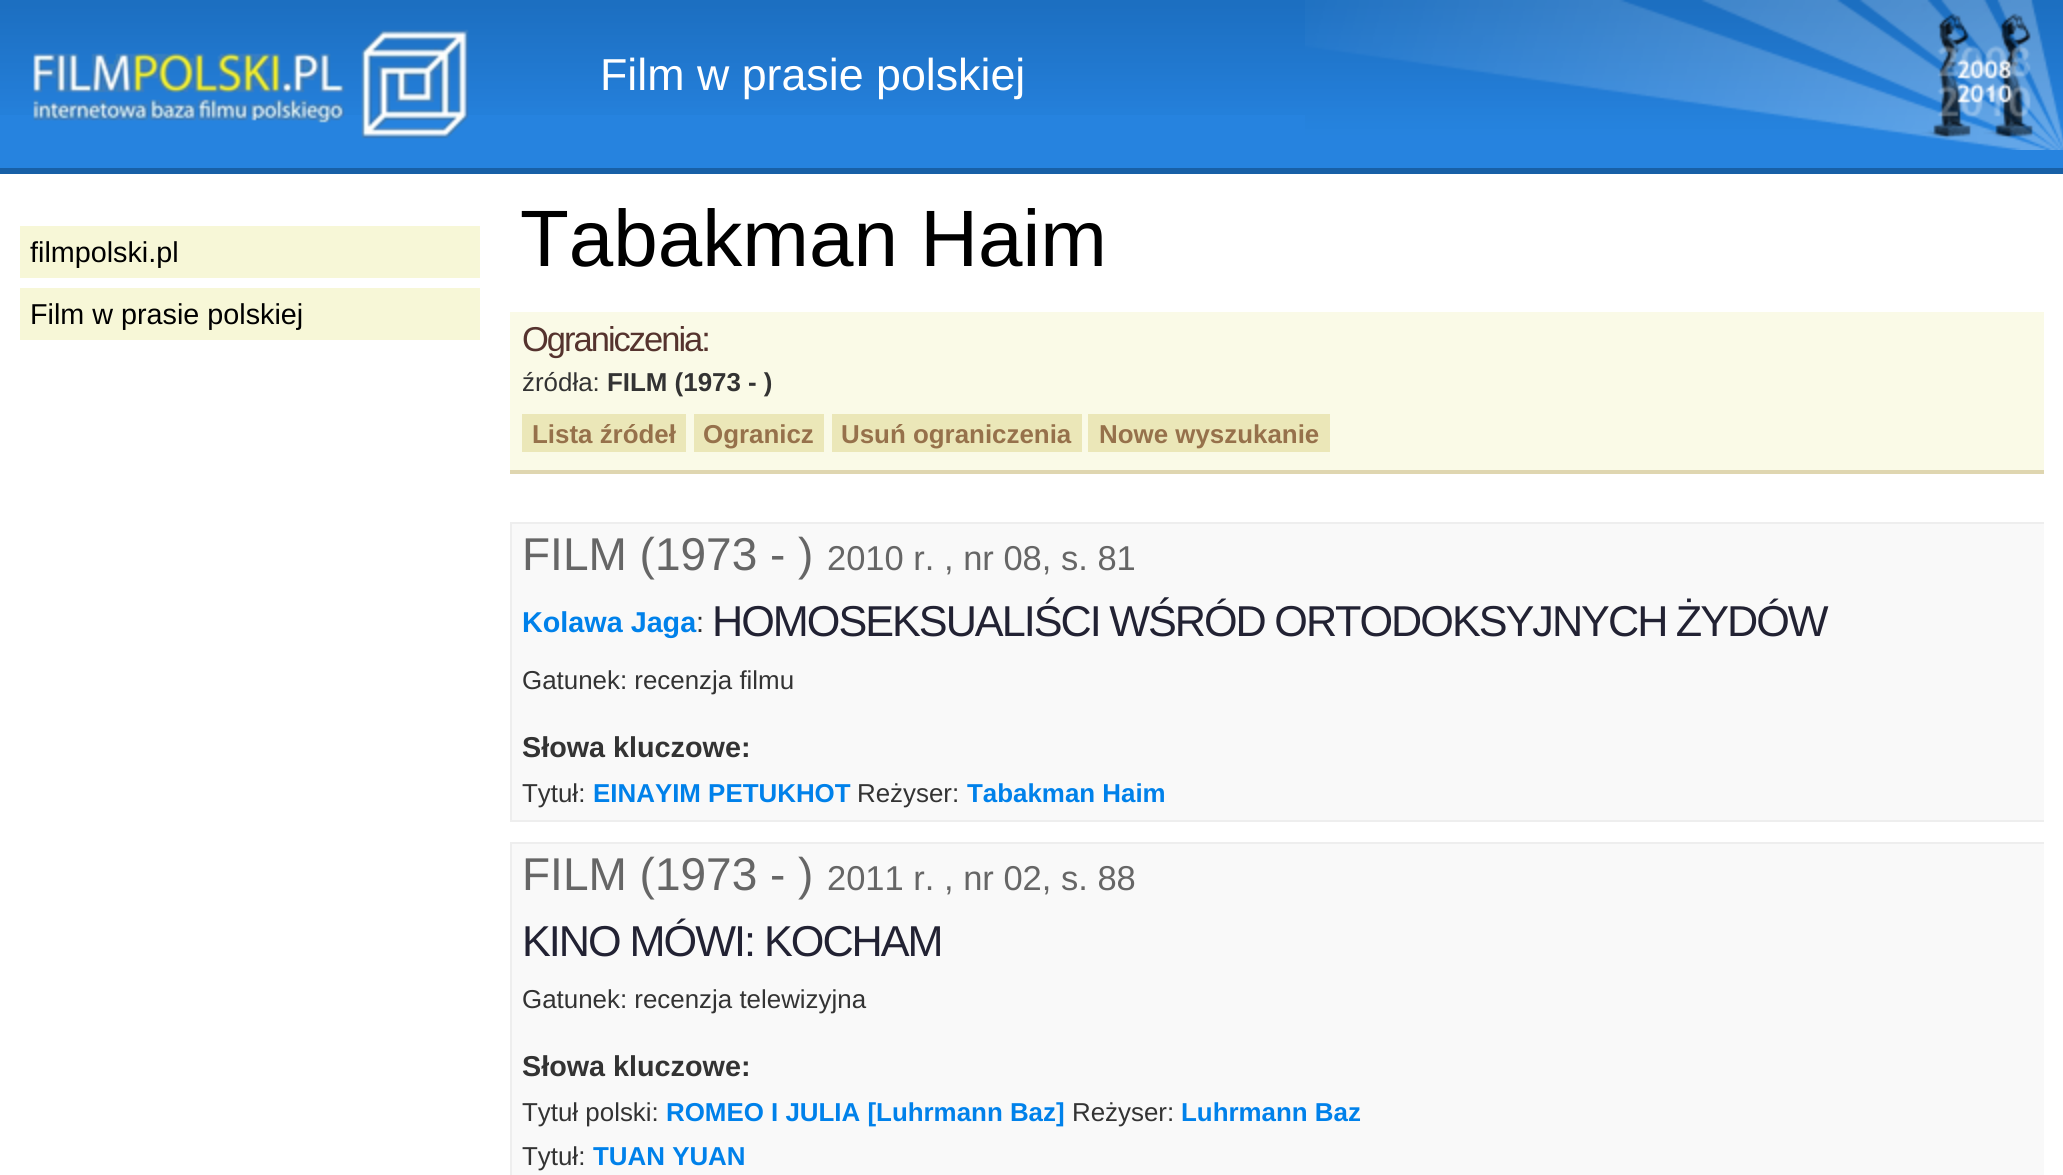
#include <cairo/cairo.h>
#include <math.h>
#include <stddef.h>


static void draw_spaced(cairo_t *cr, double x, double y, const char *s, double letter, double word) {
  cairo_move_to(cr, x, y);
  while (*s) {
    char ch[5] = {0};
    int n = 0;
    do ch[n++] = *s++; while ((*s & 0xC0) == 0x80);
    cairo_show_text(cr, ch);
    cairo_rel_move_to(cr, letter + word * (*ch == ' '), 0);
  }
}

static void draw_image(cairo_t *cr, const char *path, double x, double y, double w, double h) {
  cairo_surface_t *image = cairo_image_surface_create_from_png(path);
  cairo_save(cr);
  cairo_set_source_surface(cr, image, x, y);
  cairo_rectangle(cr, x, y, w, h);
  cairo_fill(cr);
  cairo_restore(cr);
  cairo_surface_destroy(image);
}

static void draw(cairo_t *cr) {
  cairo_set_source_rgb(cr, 1, 1, 1);
  cairo_paint(cr);
  cairo_set_source_rgb(cr, 38 / 255.0, 131 / 255.0, 223 / 255.0);
  cairo_rectangle(cr, 0, 115, 2063, 53);
  cairo_fill(cr);
  draw_image(cr, "images/1.png", 0, 0, 1305, 115);
  draw_image(cr, "images/2.png", 1305, 0, 758, 150);
  draw_image(cr, "images/3.png", 33, 29, 436, 110);
  cairo_set_source_rgb(cr, 247 / 255.0, 247 / 255.0, 215 / 255.0);
  cairo_rectangle(cr, 20, 226, 460, 52);
  cairo_fill(cr);
  cairo_rectangle(cr, 20, 288, 460, 52);
  cairo_fill(cr);
  cairo_set_source_rgb(cr, 24 / 255.0, 96 / 255.0, 167 / 255.0);
  cairo_rectangle(cr, 0, 168, 2063, 6);
  cairo_fill(cr);
  cairo_set_source_rgb(cr, 250 / 255.0, 250 / 255.0, 231 / 255.0);
  cairo_rectangle(cr, 510, 312, 1534, 158);
  cairo_fill(cr);
  cairo_set_source_rgb(cr, 223 / 255.0, 214 / 255.0, 176 / 255.0);
  cairo_rectangle(cr, 510, 470, 1534, 4);
  cairo_fill(cr);
  cairo_set_source_rgb(cr, 235 / 255.0, 231 / 255.0, 184 / 255.0);
  cairo_rectangle(cr, 522, 414, 164, 38);
  cairo_fill(cr);
  cairo_rectangle(cr, 694, 414, 130, 38);
  cairo_fill(cr);
  cairo_rectangle(cr, 832, 414, 250, 38);
  cairo_fill(cr);
  cairo_rectangle(cr, 1088, 414, 242, 38);
  cairo_fill(cr);
  cairo_set_source_rgb(cr, 249 / 255.0, 249 / 255.0, 249 / 255.0);
  cairo_rectangle(cr, 512, 524, 1532, 296);
  cairo_fill(cr);
  cairo_set_source_rgb(cr, 238 / 255.0, 238 / 255.0, 238 / 255.0);
  cairo_rectangle(cr, 510, 522, 1534, 2);
  cairo_fill(cr);
  cairo_rectangle(cr, 510, 820, 1534, 2);
  cairo_fill(cr);
  cairo_rectangle(cr, 510, 522, 2, 300);
  cairo_fill(cr);
  cairo_set_source_rgb(cr, 249 / 255.0, 249 / 255.0, 249 / 255.0);
  cairo_rectangle(cr, 512, 844, 1532, 331);
  cairo_fill(cr);
  cairo_set_source_rgb(cr, 238 / 255.0, 238 / 255.0, 238 / 255.0);
  cairo_rectangle(cr, 510, 842, 1534, 2);
  cairo_fill(cr);
  cairo_rectangle(cr, 510, 842, 2, 333);
  cairo_fill(cr);
  cairo_select_font_face(cr, "Liberation Sans", CAIRO_FONT_SLANT_NORMAL, CAIRO_FONT_WEIGHT_NORMAL);
  cairo_set_font_size(cr, 44.75);
  cairo_set_source_rgb(cr, 1, 1, 1);
  cairo_move_to(cr, 600, 90);
  cairo_show_text(cr, "Film w prasie polskiej");
  cairo_set_font_size(cr, 28.75);
  cairo_set_source_rgb(cr, 0, 0, 0);
  cairo_move_to(cr, 30, 262);
  cairo_show_text(cr, "filmpolski.pl");
  cairo_move_to(cr, 30, 324);
  cairo_show_text(cr, "Film w prasie polskiej");
  cairo_set_font_size(cr, 80);
  cairo_move_to(cr, 520, 266);
  cairo_show_text(cr, "Tabakman Haim");
  cairo_set_font_size(cr, 34.5);
  cairo_set_source_rgb(cr, 85 / 255.0, 51 / 255.0, 46 / 255.0);
  draw_spaced(cr, 522, 351, "Ograniczenia:", -2, 0);
  cairo_set_font_size(cr, 25.9);
  cairo_set_source_rgb(cr, 51 / 255.0, 51 / 255.0, 51 / 255.0);
  cairo_move_to(cr, 522, 391);
  cairo_show_text(cr, "źródła:");
  cairo_select_font_face(cr, "Liberation Sans", CAIRO_FONT_SLANT_NORMAL, CAIRO_FONT_WEIGHT_BOLD);
  cairo_move_to(cr, 607, 391);
  cairo_show_text(cr, "FILM (1973 - )");
  cairo_set_source_rgb(cr, 150 / 255.0, 113 / 255.0, 75 / 255.0);
  cairo_move_to(cr, 532, 443);
  cairo_show_text(cr, "Lista źródeł");
  cairo_move_to(cr, 703, 443);
  cairo_show_text(cr, "Ogranicz");
  cairo_move_to(cr, 841, 443);
  cairo_show_text(cr, "Usuń ograniczenia");
  cairo_move_to(cr, 1099, 443);
  cairo_show_text(cr, "Nowe wyszukanie");
  cairo_select_font_face(cr, "Liberation Sans", CAIRO_FONT_SLANT_NORMAL, CAIRO_FONT_WEIGHT_NORMAL);
  cairo_set_font_size(cr, 46);
  cairo_set_source_rgb(cr, 102 / 255.0, 102 / 255.0, 102 / 255.0);
  cairo_move_to(cr, 522, 570);
  cairo_show_text(cr, "FILM (1973 - )");
  cairo_set_font_size(cr, 34.5);
  cairo_move_to(cr, 827, 570);
  cairo_show_text(cr, "2010 r. , nr 08, s. 81");
  cairo_select_font_face(cr, "Liberation Sans", CAIRO_FONT_SLANT_NORMAL, CAIRO_FONT_WEIGHT_BOLD);
  cairo_set_font_size(cr, 28.75);
  cairo_set_source_rgb(cr, 0, 129 / 255.0, 234 / 255.0);
  cairo_move_to(cr, 522, 632);
  cairo_show_text(cr, "Kolawa Jaga");
  cairo_select_font_face(cr, "Liberation Sans", CAIRO_FONT_SLANT_NORMAL, CAIRO_FONT_WEIGHT_NORMAL);
  cairo_set_source_rgb(cr, 51 / 255.0, 51 / 255.0, 51 / 255.0);
  cairo_move_to(cr, 696, 632);
  cairo_show_text(cr, ":");
  cairo_set_font_size(cr, 43.2);
  cairo_set_source_rgb(cr, 34 / 255.0, 34 / 255.0, 51 / 255.0);
  draw_spaced(cr, 712, 636, "HOMOSEKSUALIŚCI WŚRÓD ORTODOKSYJNYCH ŻYDÓW", -2, -0.5);
  cairo_set_font_size(cr, 25.9);
  cairo_set_source_rgb(cr, 51 / 255.0, 51 / 255.0, 51 / 255.0);
  cairo_move_to(cr, 522, 689);
  cairo_show_text(cr, "Gatunek: recenzja filmu");
  cairo_select_font_face(cr, "Liberation Sans", CAIRO_FONT_SLANT_NORMAL, CAIRO_FONT_WEIGHT_BOLD);
  cairo_set_font_size(cr, 28.75);
  cairo_move_to(cr, 522, 757);
  cairo_show_text(cr, "Słowa kluczowe:");
  cairo_select_font_face(cr, "Liberation Sans", CAIRO_FONT_SLANT_NORMAL, CAIRO_FONT_WEIGHT_NORMAL);
  cairo_set_font_size(cr, 25.9);
  cairo_move_to(cr, 522, 802);
  cairo_show_text(cr, "Tytuł:");
  cairo_select_font_face(cr, "Liberation Sans", CAIRO_FONT_SLANT_NORMAL, CAIRO_FONT_WEIGHT_BOLD);
  cairo_set_source_rgb(cr, 0, 129 / 255.0, 234 / 255.0);
  cairo_move_to(cr, 593, 802);
  cairo_show_text(cr, "EINAYIM PETUKHOT");
  cairo_select_font_face(cr, "Liberation Sans", CAIRO_FONT_SLANT_NORMAL, CAIRO_FONT_WEIGHT_NORMAL);
  cairo_set_source_rgb(cr, 51 / 255.0, 51 / 255.0, 51 / 255.0);
  cairo_move_to(cr, 857, 802);
  cairo_show_text(cr, "Reżyser:");
  cairo_select_font_face(cr, "Liberation Sans", CAIRO_FONT_SLANT_NORMAL, CAIRO_FONT_WEIGHT_BOLD);
  cairo_set_source_rgb(cr, 0, 129 / 255.0, 234 / 255.0);
  cairo_move_to(cr, 967, 802);
  cairo_show_text(cr, "Tabakman Haim");
  cairo_select_font_face(cr, "Liberation Sans", CAIRO_FONT_SLANT_NORMAL, CAIRO_FONT_WEIGHT_NORMAL);
  cairo_set_font_size(cr, 46);
  cairo_set_source_rgb(cr, 102 / 255.0, 102 / 255.0, 102 / 255.0);
  cairo_move_to(cr, 522, 890);
  cairo_show_text(cr, "FILM (1973 - )");
  cairo_set_font_size(cr, 34.5);
  cairo_move_to(cr, 827, 890);
  cairo_show_text(cr, "2011 r. , nr 02, s. 88");
  cairo_set_font_size(cr, 43.2);
  cairo_set_source_rgb(cr, 34 / 255.0, 34 / 255.0, 51 / 255.0);
  draw_spaced(cr, 522, 956, "KINO MÓWI: KOCHAM", -2, 0);
  cairo_set_font_size(cr, 25.9);
  cairo_set_source_rgb(cr, 51 / 255.0, 51 / 255.0, 51 / 255.0);
  cairo_move_to(cr, 522, 1008);
  cairo_show_text(cr, "Gatunek: recenzja telewizyjna");
  cairo_select_font_face(cr, "Liberation Sans", CAIRO_FONT_SLANT_NORMAL, CAIRO_FONT_WEIGHT_BOLD);
  cairo_set_font_size(cr, 28.75);
  cairo_move_to(cr, 522, 1076);
  cairo_show_text(cr, "Słowa kluczowe:");
  cairo_select_font_face(cr, "Liberation Sans", CAIRO_FONT_SLANT_NORMAL, CAIRO_FONT_WEIGHT_NORMAL);
  cairo_set_font_size(cr, 25.9);
  cairo_move_to(cr, 522, 1121);
  cairo_show_text(cr, "Tytuł polski:");
  cairo_select_font_face(cr, "Liberation Sans", CAIRO_FONT_SLANT_NORMAL, CAIRO_FONT_WEIGHT_BOLD);
  cairo_set_source_rgb(cr, 0, 129 / 255.0, 234 / 255.0);
  cairo_move_to(cr, 666, 1121);
  cairo_show_text(cr, "ROMEO I JULIA [Luhrmann Baz]");
  cairo_select_font_face(cr, "Liberation Sans", CAIRO_FONT_SLANT_NORMAL, CAIRO_FONT_WEIGHT_NORMAL);
  cairo_set_source_rgb(cr, 51 / 255.0, 51 / 255.0, 51 / 255.0);
  cairo_move_to(cr, 1072, 1121);
  cairo_show_text(cr, "Reżyser:");
  cairo_select_font_face(cr, "Liberation Sans", CAIRO_FONT_SLANT_NORMAL, CAIRO_FONT_WEIGHT_BOLD);
  cairo_set_source_rgb(cr, 0, 129 / 255.0, 234 / 255.0);
  cairo_move_to(cr, 1181, 1121);
  cairo_show_text(cr, "Luhrmann Baz");
  cairo_select_font_face(cr, "Liberation Sans", CAIRO_FONT_SLANT_NORMAL, CAIRO_FONT_WEIGHT_NORMAL);
  cairo_set_source_rgb(cr, 51 / 255.0, 51 / 255.0, 51 / 255.0);
  cairo_move_to(cr, 522, 1165);
  cairo_show_text(cr, "Tytuł:");
  cairo_select_font_face(cr, "Liberation Sans", CAIRO_FONT_SLANT_NORMAL, CAIRO_FONT_WEIGHT_BOLD);
  cairo_set_source_rgb(cr, 0, 129 / 255.0, 234 / 255.0);
  cairo_move_to(cr, 593, 1165);
  cairo_show_text(cr, "TUAN YUAN");
}

int main(void) {
  cairo_surface_t *surface = cairo_image_surface_create(CAIRO_FORMAT_RGB24, 2063, 1175);
  cairo_t *cr = cairo_create(surface);
  cairo_font_options_t *options = cairo_font_options_create();
  cairo_font_options_set_hint_metrics(options, CAIRO_HINT_METRICS_OFF);
  cairo_font_options_set_hint_style(options, CAIRO_HINT_STYLE_NONE);
  cairo_set_font_options(cr, options);
  cairo_set_miter_limit(cr, 4);
  draw(cr);
  cairo_surface_write_to_png(surface, "out.png");
  cairo_font_options_destroy(options);
  cairo_destroy(cr);
  cairo_surface_destroy(surface);
  return 0;
}
